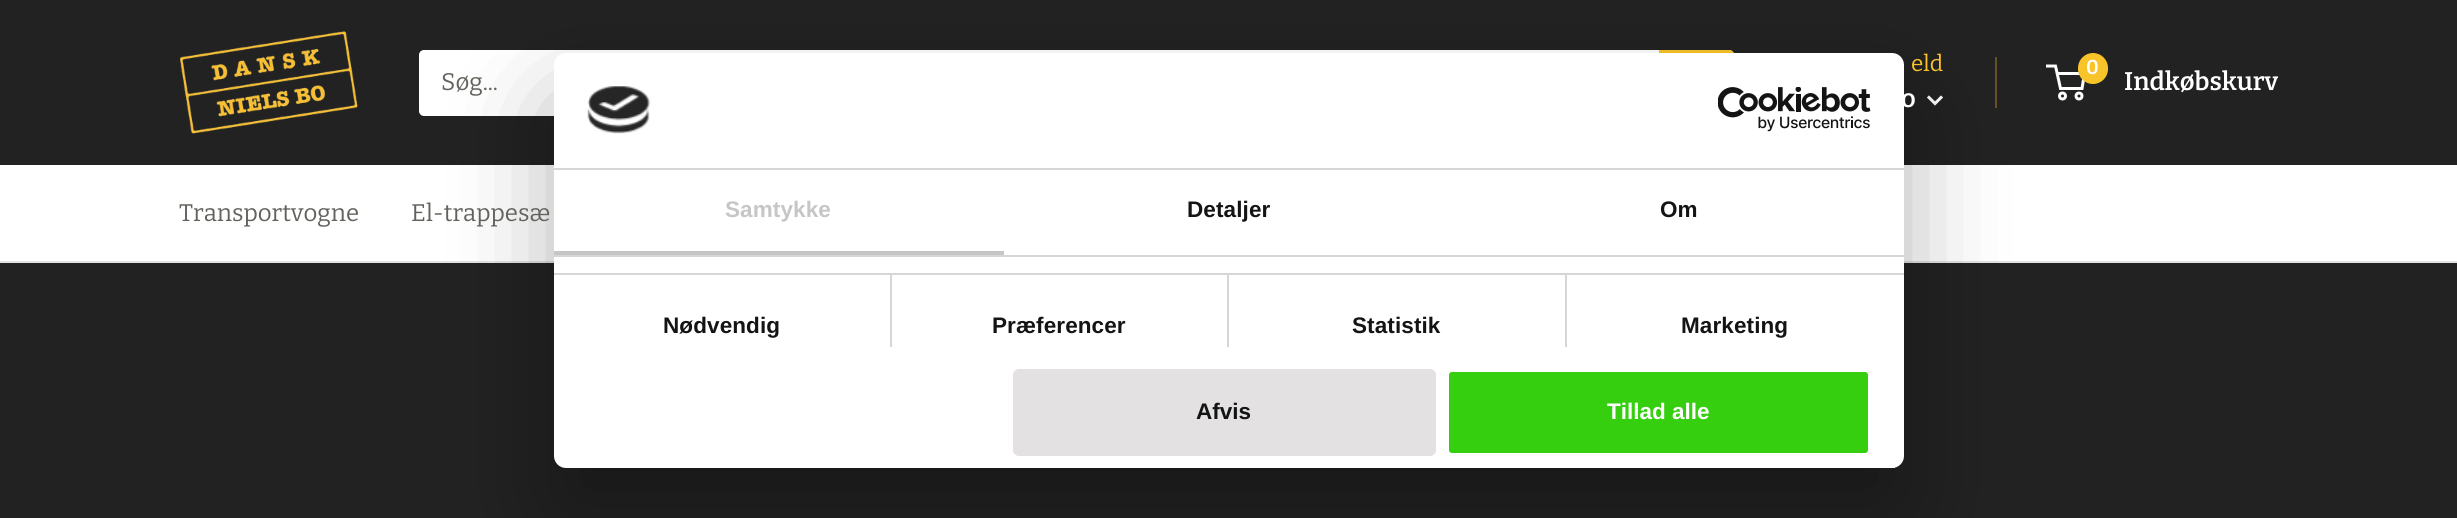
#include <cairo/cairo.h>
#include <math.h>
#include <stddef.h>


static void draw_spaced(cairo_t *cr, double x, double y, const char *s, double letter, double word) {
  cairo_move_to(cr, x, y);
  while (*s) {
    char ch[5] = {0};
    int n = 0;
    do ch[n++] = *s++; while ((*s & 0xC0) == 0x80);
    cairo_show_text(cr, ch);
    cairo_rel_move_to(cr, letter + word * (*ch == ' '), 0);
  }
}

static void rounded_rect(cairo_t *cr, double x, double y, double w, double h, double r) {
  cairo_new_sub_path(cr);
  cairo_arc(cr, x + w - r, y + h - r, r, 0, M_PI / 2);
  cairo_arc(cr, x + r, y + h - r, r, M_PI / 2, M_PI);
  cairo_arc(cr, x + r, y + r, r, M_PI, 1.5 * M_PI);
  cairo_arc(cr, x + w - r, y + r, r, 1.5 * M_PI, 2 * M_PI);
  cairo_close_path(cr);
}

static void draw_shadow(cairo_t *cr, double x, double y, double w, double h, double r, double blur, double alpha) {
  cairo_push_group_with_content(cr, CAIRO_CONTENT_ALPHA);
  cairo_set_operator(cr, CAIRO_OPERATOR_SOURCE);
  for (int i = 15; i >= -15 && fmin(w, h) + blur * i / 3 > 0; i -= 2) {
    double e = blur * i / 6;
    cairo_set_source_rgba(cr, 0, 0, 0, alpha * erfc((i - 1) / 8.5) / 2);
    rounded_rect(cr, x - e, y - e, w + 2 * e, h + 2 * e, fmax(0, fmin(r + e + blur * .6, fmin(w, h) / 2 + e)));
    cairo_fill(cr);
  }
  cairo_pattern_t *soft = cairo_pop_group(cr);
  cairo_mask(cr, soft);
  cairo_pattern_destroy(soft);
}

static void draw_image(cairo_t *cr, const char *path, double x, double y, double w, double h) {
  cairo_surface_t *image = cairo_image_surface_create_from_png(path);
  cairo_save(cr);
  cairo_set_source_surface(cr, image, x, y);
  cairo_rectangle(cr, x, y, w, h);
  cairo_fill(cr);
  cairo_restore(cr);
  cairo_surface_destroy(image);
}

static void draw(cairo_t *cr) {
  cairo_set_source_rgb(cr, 34 / 255.0, 34 / 255.0, 34 / 255.0);
  cairo_paint(cr);
  draw_image(cr, "images/1.png", 180, 31, 178, 103);
  cairo_set_source_rgb(cr, 1, 1, 1);
  rounded_rect(cr, 419, 50, 1315, 66, 5);
  cairo_fill(cr);
  cairo_set_source_rgb(cr, 249 / 255.0, 195 / 255.0, 42 / 255.0);
  cairo_new_path(cr);
  cairo_move_to(cr, 1659, 50);
  cairo_line_to(cr, 1729, 50);
  cairo_curve_to(cr, 1732, 50, 1734, 52, 1734, 55);
  cairo_line_to(cr, 1734, 111);
  cairo_curve_to(cr, 1734, 114, 1732, 116, 1729, 116);
  cairo_line_to(cr, 1659, 116);
  cairo_close_path(cr);
  cairo_fill(cr);
  cairo_new_path(cr);
  cairo_move_to(cr, 1941, 97.5);
  cairo_line_to(cr, 1935, 103.5);
  cairo_line_to(cr, 1929, 97.5);
  cairo_set_source_rgb(cr, 1, 1, 1);
  cairo_set_line_width(cr, 3);
  cairo_set_line_cap(cr, CAIRO_LINE_CAP_SQUARE);
  cairo_stroke(cr);
  cairo_set_source_rgb(cr, 99 / 255.0, 82 / 255.0, 36 / 255.0);
  cairo_rectangle(cr, 1995, 57, 2, 51);
  cairo_fill(cr);
  cairo_arc(cr, 2062.5, 96, 3, 0, 2 * M_PI);
  cairo_set_source_rgb(cr, 1, 1, 1);
  cairo_set_line_cap(cr, CAIRO_LINE_CAP_BUTT);
  cairo_stroke(cr);
  cairo_arc(cr, 2079, 96, 3, 0, 2 * M_PI);
  cairo_stroke(cr);
  cairo_new_path(cr);
  cairo_move_to(cr, 2057, 73.5);
  cairo_line_to(cr, 2084.5, 73.5);
  cairo_line_to(cr, 2082, 88.5);
  cairo_line_to(cr, 2060.5, 88.5);
  cairo_line_to(cr, 2055.5, 66);
  cairo_line_to(cr, 2046, 66);
  cairo_stroke(cr);
  cairo_set_source_rgb(cr, 249 / 255.0, 195 / 255.0, 42 / 255.0);
  rounded_rect(cr, 2078, 53, 30, 31, 15);
  cairo_fill(cr);
  cairo_set_source_rgb(cr, 1, 1, 1);
  cairo_rectangle(cr, 0, 165, 2457, 96);
  cairo_fill(cr);
  cairo_set_source_rgb(cr, 225 / 255.0, 227 / 255.0, 228 / 255.0);
  cairo_rectangle(cr, 0, 261, 2457, 2);
  cairo_fill(cr);
  cairo_set_source_rgb(cr, 0, 0, 0);
  draw_shadow(cr, 554, 101, 1350, 415, 12, 51, 0.3);
  cairo_set_source_rgb(cr, 1, 1, 1);
  rounded_rect(cr, 554, 53, 1350, 415, 12);
  cairo_fill(cr);
  cairo_set_source_rgb(cr, 214 / 255.0, 214 / 255.0, 214 / 255.0);
  cairo_rectangle(cr, 554, 168, 1350, 2);
  cairo_fill(cr);
  draw_image(cr, "images/2.png", 587, 86, 64, 48);
  draw_image(cr, "images/3.png", 1718, 87, 153, 45);
  cairo_rectangle(cr, 554, 255, 1350, 2);
  cairo_fill(cr);
  cairo_set_source_rgb(cr, 198 / 255.0, 198 / 255.0, 198 / 255.0);
  cairo_rectangle(cr, 554, 251, 450, 4);
  cairo_fill(cr);
  cairo_set_source_rgb(cr, 214 / 255.0, 214 / 255.0, 214 / 255.0);
  cairo_rectangle(cr, 554, 273, 1350, 2);
  cairo_fill(cr);
  cairo_rectangle(cr, 890, 275, 2, 72);
  cairo_fill(cr);
  cairo_rectangle(cr, 1227, 275, 2, 72);
  cairo_fill(cr);
  cairo_rectangle(cr, 1565, 275, 2, 72);
  cairo_fill(cr);
  cairo_set_source_rgb(cr, 227 / 255.0, 225 / 255.0, 225 / 255.0);
  rounded_rect(cr, 1014.5, 370.5, 420, 84, 4.5);
  cairo_fill_preserve(cr);
  cairo_stroke(cr);
  cairo_set_source_rgb(cr, 54 / 255.0, 207 / 255.0, 16 / 255.0);
  rounded_rect(cr, 1447.5, 370.5, 422, 84, 4.5);
  cairo_fill_preserve(cr);
  cairo_set_source_rgb(cr, 1, 1, 1);
  cairo_stroke(cr);
  cairo_rectangle(cr, 1892, 467, 3, 1);
  cairo_fill(cr);
  cairo_select_font_face(cr, "Bitter", CAIRO_FONT_SLANT_NORMAL, CAIRO_FONT_WEIGHT_NORMAL);
  cairo_set_font_size(cr, 24);
  cairo_set_source_rgb(cr, 98 / 255.0, 99 / 255.0, 93 / 255.0);
  cairo_move_to(cr, 441, 90);
  cairo_show_text(cr, "Søg...");
  cairo_select_font_face(cr, "Bitter SemiBold", CAIRO_FONT_SLANT_NORMAL, CAIRO_FONT_WEIGHT_NORMAL);
  cairo_set_font_size(cr, 25.5);
  cairo_set_source_rgb(cr, 1, 1, 1);
  cairo_move_to(cr, 1901, 107);
  cairo_show_text(cr, "o");
  cairo_select_font_face(cr, "Bitter", CAIRO_FONT_SLANT_NORMAL, CAIRO_FONT_WEIGHT_NORMAL);
  cairo_set_font_size(cr, 22.5);
  cairo_set_source_rgb(cr, 249 / 255.0, 195 / 255.0, 42 / 255.0);
  cairo_move_to(cr, 1911, 71);
  cairo_show_text(cr, "eld");
  cairo_select_font_face(cr, "Bitter SemiBold", CAIRO_FONT_SLANT_NORMAL, CAIRO_FONT_WEIGHT_NORMAL);
  cairo_set_font_size(cr, 20);
  cairo_set_source_rgb(cr, 1, 1, 1);
  cairo_move_to(cr, 2086, 74);
  cairo_show_text(cr, "0");
  cairo_set_font_size(cr, 25.5);
  cairo_move_to(cr, 2124, 90);
  cairo_show_text(cr, "Indkøbskurv");
  cairo_select_font_face(cr, "Bitter", CAIRO_FONT_SLANT_NORMAL, CAIRO_FONT_WEIGHT_NORMAL);
  cairo_set_font_size(cr, 24);
  cairo_set_source_rgb(cr, 98 / 255.0, 99 / 255.0, 93 / 255.0);
  cairo_move_to(cr, 179, 221);
  cairo_show_text(cr, "Transportvogne");
  cairo_move_to(cr, 411, 221);
  cairo_show_text(cr, "El-trappesæ");
  cairo_select_font_face(cr, "Liberation Sans", CAIRO_FONT_SLANT_NORMAL, CAIRO_FONT_WEIGHT_BOLD);
  cairo_set_font_size(cr, 22.5);
  cairo_set_source_rgb(cr, 198 / 255.0, 198 / 255.0, 198 / 255.0);
  draw_spaced(cr, 725, 217, "Samtykke", 0.1, 0);
  cairo_set_source_rgb(cr, 20 / 255.0, 20 / 255.0, 20 / 255.0);
  draw_spaced(cr, 1187, 217, "Detaljer", 0.1, 0);
  draw_spaced(cr, 1660, 217, "Om", 0.1, 0);
  draw_spaced(cr, 663, 333, "Nødvendig", 0.1, 0);
  draw_spaced(cr, 992, 333, "Præferencer", 0.1, 0);
  draw_spaced(cr, 1352, 333, "Statistik", 0.1, 0);
  draw_spaced(cr, 1681, 333, "Marketing", 0.1, 0);
  cairo_move_to(cr, 1196, 419);
  cairo_show_text(cr, "Afvis");
  cairo_set_source_rgb(cr, 1, 1, 1);
  cairo_move_to(cr, 1607, 419);
  cairo_show_text(cr, "Tillad alle");
}

int main(void) {
  cairo_surface_t *surface = cairo_image_surface_create(CAIRO_FORMAT_RGB24, 2457, 518);
  cairo_t *cr = cairo_create(surface);
  cairo_font_options_t *options = cairo_font_options_create();
  cairo_font_options_set_hint_metrics(options, CAIRO_HINT_METRICS_OFF);
  cairo_font_options_set_hint_style(options, CAIRO_HINT_STYLE_NONE);
  cairo_set_font_options(cr, options);
  cairo_set_miter_limit(cr, 4);
  draw(cr);
  cairo_surface_write_to_png(surface, "out.png");
  cairo_font_options_destroy(options);
  cairo_destroy(cr);
  cairo_surface_destroy(surface);
  return 0;
}
